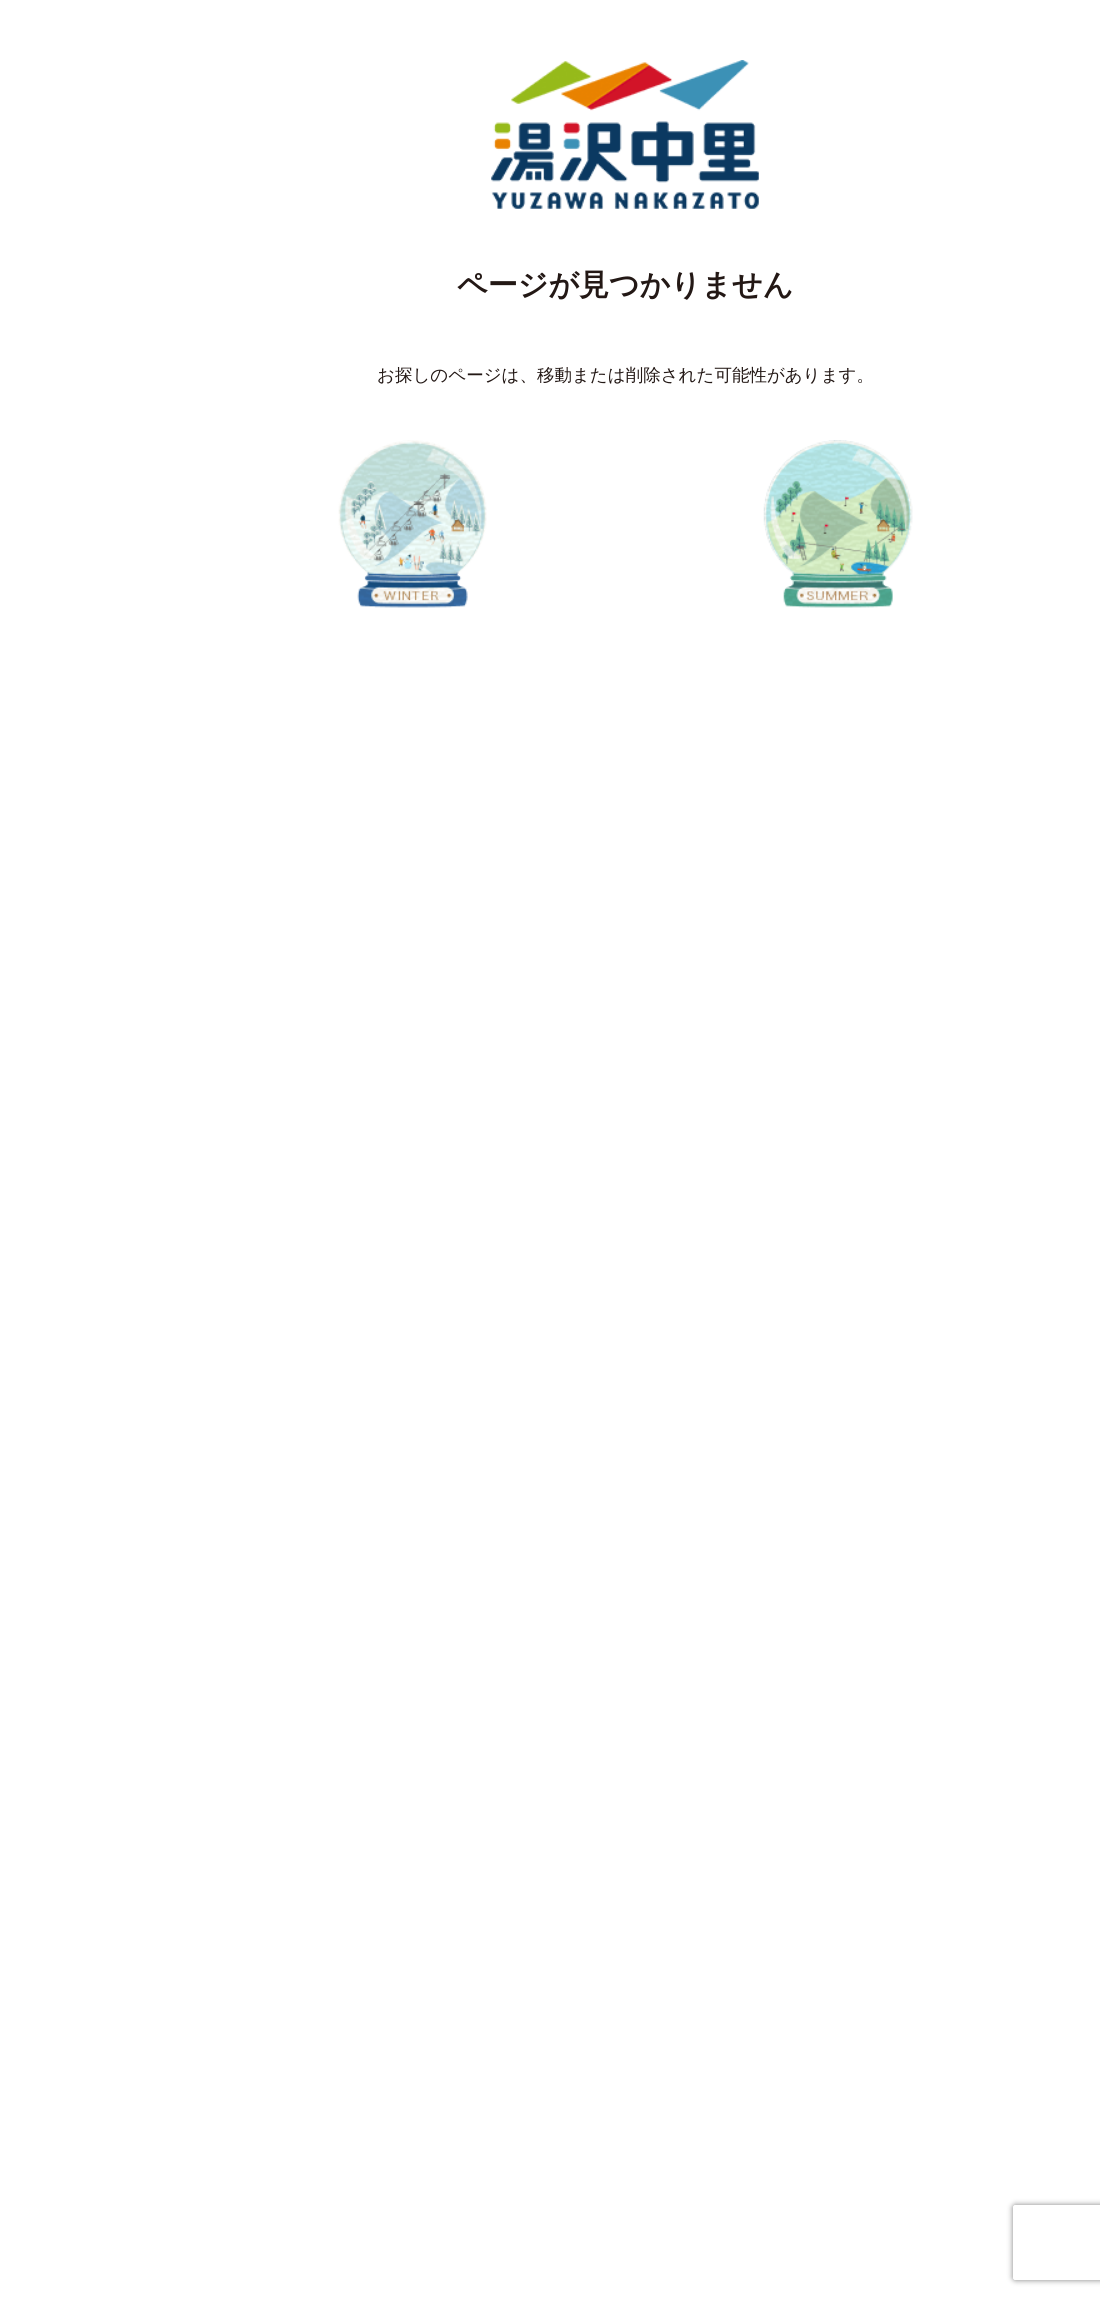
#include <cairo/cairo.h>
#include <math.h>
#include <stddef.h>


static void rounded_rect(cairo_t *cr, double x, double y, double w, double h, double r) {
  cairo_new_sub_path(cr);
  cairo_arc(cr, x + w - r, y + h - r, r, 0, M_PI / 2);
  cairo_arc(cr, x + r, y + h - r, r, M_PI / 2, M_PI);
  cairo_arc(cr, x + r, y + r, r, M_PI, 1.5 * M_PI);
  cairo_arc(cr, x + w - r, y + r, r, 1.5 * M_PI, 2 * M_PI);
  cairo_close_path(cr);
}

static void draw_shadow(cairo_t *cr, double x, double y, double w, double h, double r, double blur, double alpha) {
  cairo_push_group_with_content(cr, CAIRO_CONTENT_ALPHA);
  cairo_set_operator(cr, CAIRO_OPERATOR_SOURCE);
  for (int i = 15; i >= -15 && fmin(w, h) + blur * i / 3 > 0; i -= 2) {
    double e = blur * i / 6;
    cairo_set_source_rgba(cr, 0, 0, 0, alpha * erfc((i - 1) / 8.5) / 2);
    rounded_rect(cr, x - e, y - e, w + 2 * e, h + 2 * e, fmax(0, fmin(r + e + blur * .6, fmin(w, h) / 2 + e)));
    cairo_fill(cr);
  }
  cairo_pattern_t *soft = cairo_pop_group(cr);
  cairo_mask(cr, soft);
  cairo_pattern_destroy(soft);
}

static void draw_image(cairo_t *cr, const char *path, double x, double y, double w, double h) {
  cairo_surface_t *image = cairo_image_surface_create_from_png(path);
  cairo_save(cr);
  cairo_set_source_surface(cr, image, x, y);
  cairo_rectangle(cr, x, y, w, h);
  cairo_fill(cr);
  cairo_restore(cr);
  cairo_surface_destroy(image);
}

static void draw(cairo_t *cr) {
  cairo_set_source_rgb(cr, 1, 1, 1);
  cairo_paint(cr);
  draw_image(cr, "images/1.png", 491, 60, 268, 149);
  draw_image(cr, "images/2.png", 338, 440, 149, 168);
  draw_image(cr, "images/3.png", 763, 440, 150, 168);
  cairo_save(cr);
  cairo_set_fill_rule(cr, CAIRO_FILL_RULE_EVEN_ODD);
  cairo_new_path(cr);
  cairo_move_to(cr, 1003, 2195);
  cairo_line_to(cr, 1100, 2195);
  cairo_line_to(cr, 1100, 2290);
  cairo_line_to(cr, 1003, 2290);
  cairo_close_path(cr);
  cairo_move_to(cr, 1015.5, 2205);
  cairo_line_to(cr, 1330.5, 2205);
  cairo_curve_to(cr, 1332, 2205, 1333, 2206, 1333, 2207.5);
  cairo_line_to(cr, 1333, 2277.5);
  cairo_curve_to(cr, 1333, 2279, 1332, 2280, 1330.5, 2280);
  cairo_line_to(cr, 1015.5, 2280);
  cairo_curve_to(cr, 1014, 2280, 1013, 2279, 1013, 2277.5);
  cairo_line_to(cr, 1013, 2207.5);
  cairo_curve_to(cr, 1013, 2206, 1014, 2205, 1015.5, 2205);
  cairo_close_path(cr);
  cairo_clip(cr);
  cairo_set_source_rgb(cr, 128 / 255.0, 128 / 255.0, 128 / 255.0);
  draw_shadow(cr, 1013, 2205, 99, 75, 2.5, 3, 1);
  cairo_restore(cr);
  cairo_select_font_face(cr, "WenQuanYi Zen Hei", CAIRO_FONT_SLANT_NORMAL, CAIRO_FONT_WEIGHT_BOLD);
  cairo_set_font_size(cr, 30);
  cairo_set_source_rgb(cr, 35 / 255.0, 24 / 255.0, 21 / 255.0);
  cairo_move_to(cr, 457, 295);
  cairo_show_text(cr, "ページが見つかりません");
  cairo_select_font_face(cr, "WenQuanYi Zen Hei Medium", CAIRO_FONT_SLANT_NORMAL, CAIRO_FONT_WEIGHT_NORMAL);
  cairo_set_font_size(cr, 17.5);
  cairo_move_to(cr, 377, 381);
  cairo_show_text(cr, "お探しのページは、移動または削除された可能性があります。");
}

int main(void) {
  cairo_surface_t *surface = cairo_image_surface_create(CAIRO_FORMAT_RGB24, 1100, 2297);
  cairo_t *cr = cairo_create(surface);
  cairo_font_options_t *options = cairo_font_options_create();
  cairo_font_options_set_hint_metrics(options, CAIRO_HINT_METRICS_OFF);
  cairo_font_options_set_hint_style(options, CAIRO_HINT_STYLE_NONE);
  cairo_set_font_options(cr, options);
  cairo_set_miter_limit(cr, 4);
  draw(cr);
  cairo_surface_write_to_png(surface, "out.png");
  cairo_font_options_destroy(options);
  cairo_destroy(cr);
  cairo_surface_destroy(surface);
  return 0;
}
